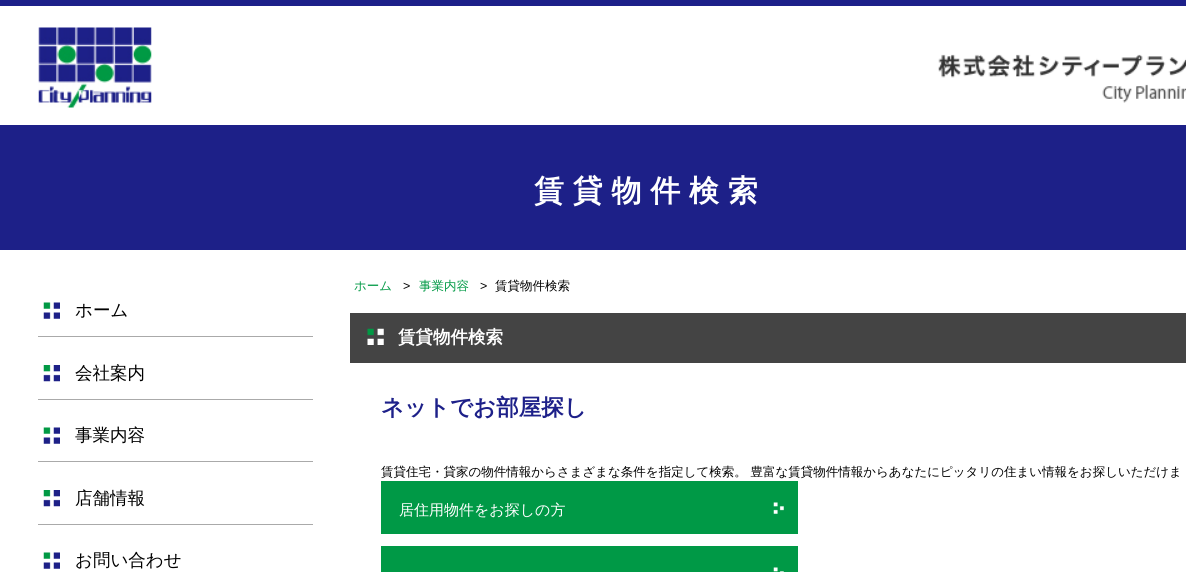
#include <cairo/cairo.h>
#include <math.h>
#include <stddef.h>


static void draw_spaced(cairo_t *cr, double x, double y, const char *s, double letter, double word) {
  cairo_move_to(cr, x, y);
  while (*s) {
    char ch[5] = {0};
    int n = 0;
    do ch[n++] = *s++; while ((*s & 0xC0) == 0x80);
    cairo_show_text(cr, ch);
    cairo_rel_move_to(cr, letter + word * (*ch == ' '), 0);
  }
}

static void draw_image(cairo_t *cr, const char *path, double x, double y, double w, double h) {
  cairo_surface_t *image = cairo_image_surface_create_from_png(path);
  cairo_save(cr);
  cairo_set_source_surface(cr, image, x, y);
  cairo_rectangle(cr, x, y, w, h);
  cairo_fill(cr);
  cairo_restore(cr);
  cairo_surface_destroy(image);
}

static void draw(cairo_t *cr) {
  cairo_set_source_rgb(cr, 1, 1, 1);
  cairo_paint(cr);
  cairo_set_source_rgb(cr, 29 / 255.0, 32 / 255.0, 137 / 255.0);
  cairo_rectangle(cr, 0, 0, 1186, 6);
  cairo_fill(cr);
  draw_image(cr, "images/1.png", 38, 27, 114, 81);
  draw_image(cr, "images/2.png", 938, 54, 248, 49);
  cairo_set_source_rgb(cr, 29 / 255.0, 32 / 255.0, 136 / 255.0);
  cairo_rectangle(cr, 0, 125, 1186, 125);
  cairo_fill(cr);
  cairo_set_source_rgb(cr, 170 / 255.0, 170 / 255.0, 170 / 255.0);
  cairo_rectangle(cr, 38, 336, 275, 1);
  cairo_fill(cr);
  draw_image(cr, "images/3.png", 43, 302, 17, 17);
  cairo_rectangle(cr, 38, 399, 275, 1);
  cairo_fill(cr);
  draw_image(cr, "images/4.png", 43, 365, 17, 17);
  cairo_rectangle(cr, 38, 461, 275, 1);
  cairo_fill(cr);
  draw_image(cr, "images/3.png", 43, 427, 17, 17);
  cairo_rectangle(cr, 38, 524, 275, 1);
  cairo_fill(cr);
  draw_image(cr, "images/4.png", 43, 490, 17, 17);
  draw_image(cr, "images/3.png", 43, 552, 17, 17);
  cairo_set_source_rgb(cr, 68 / 255.0, 68 / 255.0, 68 / 255.0);
  cairo_rectangle(cr, 350, 313, 836, 50);
  cairo_fill(cr);
  draw_image(cr, "images/5.png", 367, 328, 17, 17);
  cairo_set_source_rgb(cr, 0, 153 / 255.0, 70 / 255.0);
  cairo_rectangle(cr, 381, 481, 417, 53);
  cairo_fill(cr);
  draw_image(cr, "images/6.png", 773, 502, 11, 12);
  cairo_rectangle(cr, 381, 546, 417, 26);
  cairo_fill(cr);
  draw_image(cr, "images/7.png", 773, 567, 11, 5);
  cairo_select_font_face(cr, "WenQuanYi Zen Hei", CAIRO_FONT_SLANT_NORMAL, CAIRO_FONT_WEIGHT_BOLD);
  cairo_set_font_size(cr, 30);
  cairo_set_source_rgb(cr, 1, 1, 1);
  draw_spaced(cr, 534, 201, "賃貸物件検索", 8.75, 0);
  cairo_select_font_face(cr, "WenQuanYi Zen Hei Medium", CAIRO_FONT_SLANT_NORMAL, CAIRO_FONT_WEIGHT_NORMAL);
  cairo_set_font_size(cr, 17.5);
  cairo_set_source_rgb(cr, 0, 0, 0);
  cairo_move_to(cr, 75, 316);
  cairo_show_text(cr, "ホーム");
  cairo_move_to(cr, 75, 379);
  cairo_show_text(cr, "会社案内");
  cairo_move_to(cr, 75, 441);
  cairo_show_text(cr, "事業内容");
  cairo_move_to(cr, 75, 504);
  cairo_show_text(cr, "店舗情報");
  cairo_move_to(cr, 75, 566);
  cairo_show_text(cr, "お問い合わせ");
  cairo_set_font_size(cr, 12.5);
  cairo_set_source_rgb(cr, 0, 153 / 255.0, 68 / 255.0);
  cairo_move_to(cr, 354, 290);
  cairo_show_text(cr, "ホーム");
  cairo_select_font_face(cr, "Liberation Sans", CAIRO_FONT_SLANT_NORMAL, CAIRO_FONT_WEIGHT_NORMAL);
  cairo_set_source_rgb(cr, 0, 0, 0);
  cairo_move_to(cr, 403, 290);
  cairo_show_text(cr, ">");
  cairo_select_font_face(cr, "WenQuanYi Zen Hei Medium", CAIRO_FONT_SLANT_NORMAL, CAIRO_FONT_WEIGHT_NORMAL);
  cairo_set_source_rgb(cr, 0, 153 / 255.0, 68 / 255.0);
  cairo_move_to(cr, 419, 290);
  cairo_show_text(cr, "事業内容");
  cairo_select_font_face(cr, "Liberation Sans", CAIRO_FONT_SLANT_NORMAL, CAIRO_FONT_WEIGHT_NORMAL);
  cairo_set_source_rgb(cr, 0, 0, 0);
  cairo_move_to(cr, 480, 290);
  cairo_show_text(cr, ">");
  cairo_select_font_face(cr, "WenQuanYi Zen Hei Medium", CAIRO_FONT_SLANT_NORMAL, CAIRO_FONT_WEIGHT_NORMAL);
  cairo_move_to(cr, 495, 290);
  cairo_show_text(cr, "賃貸物件検索");
  cairo_select_font_face(cr, "WenQuanYi Zen Hei", CAIRO_FONT_SLANT_NORMAL, CAIRO_FONT_WEIGHT_BOLD);
  cairo_set_font_size(cr, 17.5);
  cairo_set_source_rgb(cr, 1, 1, 1);
  cairo_move_to(cr, 398, 343);
  cairo_show_text(cr, "賃貸物件検索");
  cairo_set_font_size(cr, 22.5);
  cairo_set_source_rgb(cr, 29 / 255.0, 32 / 255.0, 137 / 255.0);
  cairo_move_to(cr, 381, 415);
  cairo_show_text(cr, "ネットでお部屋探し");
  cairo_select_font_face(cr, "WenQuanYi Zen Hei Medium", CAIRO_FONT_SLANT_NORMAL, CAIRO_FONT_WEIGHT_NORMAL);
  cairo_set_font_size(cr, 12.5);
  cairo_set_source_rgb(cr, 0, 0, 0);
  cairo_move_to(cr, 381, 476);
  cairo_show_text(cr, "賃貸住宅・貸家の物件情報からさまざまな条件を指定して検索。 豊富な賃貸物件情報からあなたにピッタリの住まい情報をお探しいただけま");
  cairo_set_font_size(cr, 15);
  cairo_set_source_rgb(cr, 1, 1, 1);
  cairo_move_to(cr, 399, 515);
  cairo_show_text(cr, "居住用物件をお探しの方");
}

int main(void) {
  cairo_surface_t *surface = cairo_image_surface_create(CAIRO_FORMAT_RGB24, 1186, 572);
  cairo_t *cr = cairo_create(surface);
  cairo_font_options_t *options = cairo_font_options_create();
  cairo_font_options_set_hint_metrics(options, CAIRO_HINT_METRICS_OFF);
  cairo_font_options_set_hint_style(options, CAIRO_HINT_STYLE_NONE);
  cairo_set_font_options(cr, options);
  cairo_set_miter_limit(cr, 4);
  draw(cr);
  cairo_surface_write_to_png(surface, "out.png");
  cairo_font_options_destroy(options);
  cairo_destroy(cr);
  cairo_surface_destroy(surface);
  return 0;
}
